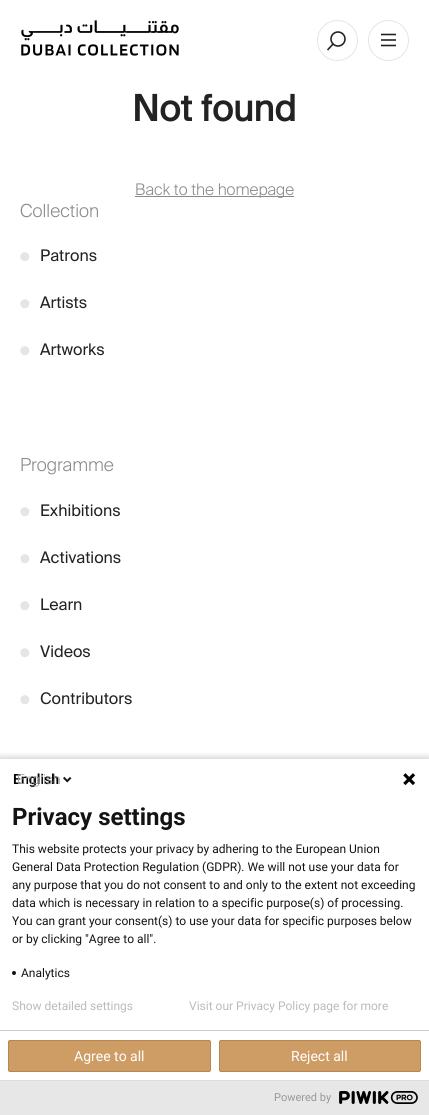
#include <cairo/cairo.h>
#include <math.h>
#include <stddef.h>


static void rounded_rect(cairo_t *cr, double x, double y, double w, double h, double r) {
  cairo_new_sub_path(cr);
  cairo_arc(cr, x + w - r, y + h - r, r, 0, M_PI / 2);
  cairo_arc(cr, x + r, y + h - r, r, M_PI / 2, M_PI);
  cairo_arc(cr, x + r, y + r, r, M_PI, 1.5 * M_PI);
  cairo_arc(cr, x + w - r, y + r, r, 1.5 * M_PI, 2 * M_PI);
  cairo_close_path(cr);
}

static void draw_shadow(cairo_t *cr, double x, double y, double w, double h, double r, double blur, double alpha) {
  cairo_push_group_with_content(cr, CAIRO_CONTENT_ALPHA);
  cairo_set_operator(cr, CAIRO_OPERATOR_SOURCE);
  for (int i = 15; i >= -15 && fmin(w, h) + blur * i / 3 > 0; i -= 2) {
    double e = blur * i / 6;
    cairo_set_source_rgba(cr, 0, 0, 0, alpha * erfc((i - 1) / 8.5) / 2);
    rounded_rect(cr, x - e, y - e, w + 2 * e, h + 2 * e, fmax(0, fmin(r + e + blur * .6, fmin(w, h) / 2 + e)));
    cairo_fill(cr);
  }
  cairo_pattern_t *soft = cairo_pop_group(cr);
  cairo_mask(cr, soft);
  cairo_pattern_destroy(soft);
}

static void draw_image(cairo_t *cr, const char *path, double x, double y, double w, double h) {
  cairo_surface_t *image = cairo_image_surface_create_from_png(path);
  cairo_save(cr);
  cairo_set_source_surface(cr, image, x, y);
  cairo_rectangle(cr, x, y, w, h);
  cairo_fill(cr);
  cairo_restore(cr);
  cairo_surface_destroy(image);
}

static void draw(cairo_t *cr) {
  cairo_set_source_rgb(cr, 1, 1, 1);
  cairo_paint(cr);
  draw_image(cr, "images/1.png", 21, 20, 158, 36);
  cairo_arc(cr, 337.5, 40.5, 20, 0, 2 * M_PI);
  cairo_set_source_rgb(cr, 229 / 255.0, 229 / 255.0, 229 / 255.0);
  cairo_set_line_width(cr, 1);
  cairo_stroke(cr);
  cairo_new_path(cr);
  cairo_move_to(cr, 333.5, 43.5);
  cairo_line_to(cr, 327.5, 50);
  cairo_set_source_rgb(cr, 34 / 255.0, 34 / 255.0, 34 / 255.0);
  cairo_set_line_width(cr, 1.6);
  cairo_stroke(cr);
  cairo_arc(cr, 338, 39, 7, 0, 2 * M_PI);
  cairo_stroke(cr);
  cairo_arc(cr, 388.5, 40.5, 20, 0, 2 * M_PI);
  cairo_set_source_rgb(cr, 229 / 255.0, 229 / 255.0, 229 / 255.0);
  cairo_set_line_width(cr, 1);
  cairo_stroke(cr);
  cairo_new_path(cr);
  cairo_move_to(cr, 381, 45.5);
  cairo_line_to(cr, 396, 45.5);
  cairo_set_source_rgb(cr, 34 / 255.0, 34 / 255.0, 34 / 255.0);
  cairo_set_line_width(cr, 1.6);
  cairo_stroke(cr);
  cairo_set_source_rgb(cr, 78 / 255.0, 78 / 255.0, 78 / 255.0);
  cairo_rectangle(cr, 381, 39, 15, 2);
  cairo_fill(cr);
  cairo_new_path(cr);
  cairo_move_to(cr, 381, 34.5);
  cairo_line_to(cr, 396, 34.5);
  cairo_set_source_rgb(cr, 34 / 255.0, 34 / 255.0, 34 / 255.0);
  cairo_stroke(cr);
  cairo_set_source_rgb(cr, 138 / 255.0, 138 / 255.0, 138 / 255.0);
  cairo_rectangle(cr, 135, 196, 159, 1);
  cairo_fill(cr);
  cairo_set_source_rgb(cr, 0, 0, 0);
  draw_shadow(cr, -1, 756, 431, 358, 0, 2.5, 0.14);
  cairo_set_source_rgb(cr, 1, 1, 1);
  cairo_rectangle(cr, 0, 759, 429, 321);
  cairo_fill(cr);
  draw_image(cr, "images/2.png", 63, 776, 9, 7);
  draw_image(cr, "images/3.png", 403, 773, 13, 13);
  cairo_set_source_rgb(cr, 19 / 255.0, 19 / 255.0, 19 / 255.0);
  cairo_arc(cr, 14, 973, 2, 0, 2 * M_PI);
  cairo_fill(cr);
  cairo_set_source_rgb(cr, 204 / 255.0, 204 / 255.0, 204 / 255.0);
  cairo_rectangle(cr, 0, 1030, 429, 1);
  cairo_fill(cr);
  cairo_set_source_rgb(cr, 206 / 255.0, 157 / 255.0, 101 / 255.0);
  rounded_rect(cr, 8.5, 1040.5, 202, 31, 1.5);
  cairo_fill_preserve(cr);
  cairo_set_source_rgb(cr, 182 / 255.0, 135 / 255.0, 80 / 255.0);
  cairo_set_line_width(cr, 1);
  cairo_stroke(cr);
  cairo_set_source_rgb(cr, 206 / 255.0, 157 / 255.0, 101 / 255.0);
  rounded_rect(cr, 219.5, 1040.5, 201, 31, 1.5);
  cairo_fill_preserve(cr);
  cairo_set_source_rgb(cr, 182 / 255.0, 135 / 255.0, 80 / 255.0);
  cairo_stroke(cr);
  cairo_set_source_rgb(cr, 231 / 255.0, 231 / 255.0, 231 / 255.0);
  cairo_rectangle(cr, 0, 1081, 429, 34);
  cairo_fill(cr);
  cairo_set_source_rgb(cr, 221 / 255.0, 221 / 255.0, 221 / 255.0);
  cairo_rectangle(cr, 0, 1080, 429, 1);
  cairo_fill(cr);
  draw_image(cr, "images/4.png", 339, 1091, 79, 13);
  cairo_select_font_face(cr, "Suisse", CAIRO_FONT_SLANT_NORMAL, CAIRO_FONT_WEIGHT_BOLD);
  cairo_set_font_size(cr, 36);
  cairo_set_source_rgb(cr, 34 / 255.0, 34 / 255.0, 34 / 255.0);
  cairo_move_to(cr, 132, 121);
  cairo_show_text(cr, "Not found");
  cairo_select_font_face(cr, "Suisse Light", CAIRO_FONT_SLANT_NORMAL, CAIRO_FONT_WEIGHT_NORMAL);
  cairo_set_font_size(cr, 16);
  cairo_set_source_rgb(cr, 138 / 255.0, 138 / 255.0, 138 / 255.0);
  cairo_move_to(cr, 135, 195);
  cairo_show_text(cr, "Back to the homepage");
  cairo_set_font_size(cr, 18);
  cairo_move_to(cr, 20, 217);
  cairo_show_text(cr, "Collection");
  cairo_select_font_face(cr, "Suisse", CAIRO_FONT_SLANT_NORMAL, CAIRO_FONT_WEIGHT_NORMAL);
  cairo_set_font_size(cr, 16);
  cairo_set_source_rgb(cr, 229 / 255.0, 229 / 255.0, 229 / 255.0);
  cairo_move_to(cr, 20, 261);
  cairo_show_text(cr, "●");
  cairo_set_source_rgb(cr, 34 / 255.0, 34 / 255.0, 34 / 255.0);
  cairo_move_to(cr, 40, 261);
  cairo_show_text(cr, "Patrons");
  cairo_set_source_rgb(cr, 229 / 255.0, 229 / 255.0, 229 / 255.0);
  cairo_move_to(cr, 20, 308);
  cairo_show_text(cr, "●");
  cairo_set_source_rgb(cr, 34 / 255.0, 34 / 255.0, 34 / 255.0);
  cairo_move_to(cr, 40, 308);
  cairo_show_text(cr, "Artists");
  cairo_set_source_rgb(cr, 229 / 255.0, 229 / 255.0, 229 / 255.0);
  cairo_move_to(cr, 20, 355);
  cairo_show_text(cr, "●");
  cairo_set_source_rgb(cr, 34 / 255.0, 34 / 255.0, 34 / 255.0);
  cairo_move_to(cr, 40, 355);
  cairo_show_text(cr, "Artworks");
  cairo_select_font_face(cr, "Suisse Light", CAIRO_FONT_SLANT_NORMAL, CAIRO_FONT_WEIGHT_NORMAL);
  cairo_set_font_size(cr, 18);
  cairo_set_source_rgb(cr, 138 / 255.0, 138 / 255.0, 138 / 255.0);
  cairo_move_to(cr, 20, 471);
  cairo_show_text(cr, "Programme");
  cairo_save(cr);
  rounded_rect(cr, 20, 497, 113, 27, 13.5);
  cairo_clip(cr);
  cairo_select_font_face(cr, "Suisse", CAIRO_FONT_SLANT_NORMAL, CAIRO_FONT_WEIGHT_NORMAL);
  cairo_set_font_size(cr, 16);
  cairo_set_source_rgb(cr, 229 / 255.0, 229 / 255.0, 229 / 255.0);
  cairo_move_to(cr, 20, 516);
  cairo_show_text(cr, "●");
  cairo_restore(cr);
  cairo_select_font_face(cr, "Suisse", CAIRO_FONT_SLANT_NORMAL, CAIRO_FONT_WEIGHT_NORMAL);
  cairo_set_font_size(cr, 16);
  cairo_set_source_rgb(cr, 34 / 255.0, 34 / 255.0, 34 / 255.0);
  cairo_move_to(cr, 40, 516);
  cairo_show_text(cr, "Exhibitions");
  cairo_save(cr);
  rounded_rect(cr, 20, 544, 114, 27, 13.5);
  cairo_clip(cr);
  cairo_set_source_rgb(cr, 229 / 255.0, 229 / 255.0, 229 / 255.0);
  cairo_move_to(cr, 20, 563);
  cairo_show_text(cr, "●");
  cairo_restore(cr);
  cairo_move_to(cr, 40, 563);
  cairo_show_text(cr, "Activations");
  cairo_save(cr);
  rounded_rect(cr, 20, 591, 75, 27, 13.5);
  cairo_clip(cr);
  cairo_set_source_rgb(cr, 229 / 255.0, 229 / 255.0, 229 / 255.0);
  cairo_move_to(cr, 20, 610);
  cairo_show_text(cr, "●");
  cairo_restore(cr);
  cairo_move_to(cr, 40, 610);
  cairo_show_text(cr, "Learn");
  cairo_save(cr);
  rounded_rect(cr, 20, 638, 83, 27, 13.5);
  cairo_clip(cr);
  cairo_set_source_rgb(cr, 229 / 255.0, 229 / 255.0, 229 / 255.0);
  cairo_move_to(cr, 20, 657);
  cairo_show_text(cr, "●");
  cairo_restore(cr);
  cairo_move_to(cr, 40, 657);
  cairo_show_text(cr, "Videos");
  cairo_save(cr);
  rounded_rect(cr, 20, 685, 125, 27, 13.5);
  cairo_clip(cr);
  cairo_set_source_rgb(cr, 229 / 255.0, 229 / 255.0, 229 / 255.0);
  cairo_move_to(cr, 20, 704);
  cairo_show_text(cr, "●");
  cairo_restore(cr);
  cairo_move_to(cr, 40, 704);
  cairo_show_text(cr, "Contributors");
  cairo_select_font_face(cr, "Roboto SemiBold", CAIRO_FONT_SLANT_NORMAL, CAIRO_FONT_WEIGHT_NORMAL);
  cairo_set_font_size(cr, 14);
  cairo_set_source_rgb(cr, 0, 0, 0);
  cairo_move_to(cr, 13, 784);
  cairo_show_text(cr, "English");
  cairo_select_font_face(cr, "Suisse Light", CAIRO_FONT_SLANT_NORMAL, CAIRO_FONT_WEIGHT_NORMAL);
  cairo_set_font_size(cr, 13.5);
  cairo_set_source_rgb(cr, 153 / 255.0, 153 / 255.0, 153 / 255.0);
  cairo_move_to(cr, 17, 784);
  cairo_show_text(cr, "English");
  cairo_select_font_face(cr, "Roboto", CAIRO_FONT_SLANT_NORMAL, CAIRO_FONT_WEIGHT_BOLD);
  cairo_set_font_size(cr, 24);
  cairo_set_source_rgb(cr, 19 / 255.0, 19 / 255.0, 19 / 255.0);
  cairo_move_to(cr, 12, 825);
  cairo_show_text(cr, "Privacy settings");
  cairo_select_font_face(cr, "Roboto", CAIRO_FONT_SLANT_NORMAL, CAIRO_FONT_WEIGHT_NORMAL);
  cairo_set_font_size(cr, 12);
  cairo_move_to(cr, 12, 853);
  cairo_show_text(cr, "This website protects your privacy by adhering to the European Union");
  cairo_move_to(cr, 12, 871);
  cairo_show_text(cr, "General Data Protection Regulation (GDPR). We will not use your data for");
  cairo_move_to(cr, 12, 889);
  cairo_show_text(cr, "any purpose that you do not consent to and only to the extent not exceeding");
  cairo_move_to(cr, 12, 907);
  cairo_show_text(cr, "data which is necessary in relation to a specific purpose(s) of processing.");
  cairo_move_to(cr, 12, 925);
  cairo_show_text(cr, "You can grant your consent(s) to use your data for specific purposes below");
  cairo_move_to(cr, 12, 943);
  cairo_show_text(cr, "or by clicking \"Agree to all\".");
  cairo_move_to(cr, 21, 977);
  cairo_show_text(cr, "Analytics");
  cairo_set_font_size(cr, 14);
  cairo_set_source_rgb(cr, 1, 1, 1);
  cairo_move_to(cr, 74, 1061);
  cairo_show_text(cr, "Agree to all");
  cairo_move_to(cr, 291, 1061);
  cairo_show_text(cr, "Reject all");
  cairo_set_font_size(cr, 12);
  cairo_set_source_rgb(cr, 187 / 255.0, 187 / 255.0, 187 / 255.0);
  cairo_move_to(cr, 12, 1010);
  cairo_show_text(cr, "Show detailed settings");
  cairo_move_to(cr, 189, 1010);
  cairo_show_text(cr, "Visit our Privacy Policy page for more");
  cairo_set_font_size(cr, 11);
  cairo_set_source_rgb(cr, 153 / 255.0, 153 / 255.0, 153 / 255.0);
  cairo_move_to(cr, 274, 1101);
  cairo_show_text(cr, "Powered by");
}

int main(void) {
  cairo_surface_t *surface = cairo_image_surface_create(CAIRO_FORMAT_RGB24, 429, 1115);
  cairo_t *cr = cairo_create(surface);
  cairo_font_options_t *options = cairo_font_options_create();
  cairo_font_options_set_hint_metrics(options, CAIRO_HINT_METRICS_OFF);
  cairo_font_options_set_hint_style(options, CAIRO_HINT_STYLE_NONE);
  cairo_set_font_options(cr, options);
  cairo_set_miter_limit(cr, 4);
  draw(cr);
  cairo_surface_write_to_png(surface, "out.png");
  cairo_font_options_destroy(options);
  cairo_destroy(cr);
  cairo_surface_destroy(surface);
  return 0;
}
